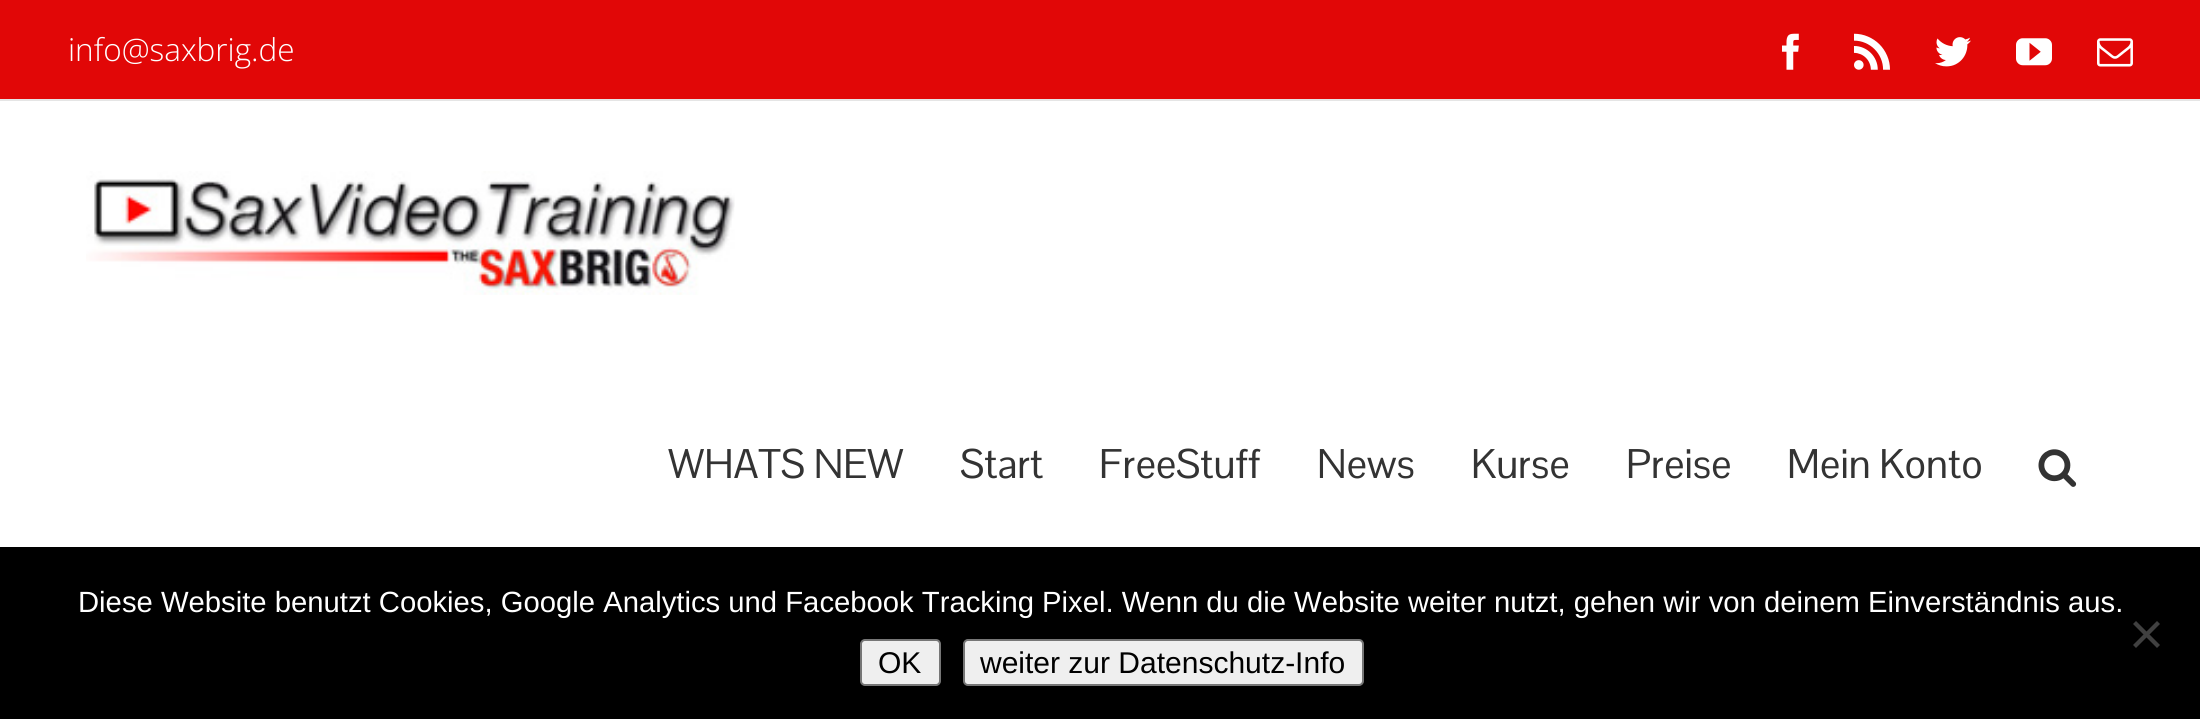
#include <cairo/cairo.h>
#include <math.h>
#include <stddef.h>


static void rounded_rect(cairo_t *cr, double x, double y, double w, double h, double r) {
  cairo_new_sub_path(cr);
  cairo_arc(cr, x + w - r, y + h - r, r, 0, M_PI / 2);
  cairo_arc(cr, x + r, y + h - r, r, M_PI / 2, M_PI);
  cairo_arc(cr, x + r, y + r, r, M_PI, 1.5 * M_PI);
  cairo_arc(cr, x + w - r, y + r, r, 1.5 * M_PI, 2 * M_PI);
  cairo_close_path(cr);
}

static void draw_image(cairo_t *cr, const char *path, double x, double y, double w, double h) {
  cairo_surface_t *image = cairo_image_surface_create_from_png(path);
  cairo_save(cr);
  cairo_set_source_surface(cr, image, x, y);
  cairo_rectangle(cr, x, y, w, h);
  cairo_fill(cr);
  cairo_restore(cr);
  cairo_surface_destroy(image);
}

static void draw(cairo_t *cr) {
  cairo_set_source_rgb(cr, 1, 1, 1);
  cairo_paint(cr);
  cairo_set_source_rgb(cr, 225 / 255.0, 7 / 255.0, 7 / 255.0);
  cairo_rectangle(cr, 0, 0, 2200, 99);
  cairo_fill(cr);
  cairo_set_source_rgb(cr, 229 / 255.0, 229 / 255.0, 229 / 255.0);
  cairo_rectangle(cr, 0, 99, 2200, 2);
  cairo_fill(cr);
  draw_image(cr, "images/1.png", 1782, 33, 17, 37);
  draw_image(cr, "images/2.png", 1854, 33, 36, 37);
  draw_image(cr, "images/3.png", 1935, 37, 36, 30);
  draw_image(cr, "images/4.png", 2016, 38, 36, 28);
  draw_image(cr, "images/5.png", 2097, 38, 36, 29);
  draw_image(cr, "images/6.png", 86, 171, 649, 124);
  draw_image(cr, "images/7.png", 2038, 449, 39, 38);
  cairo_set_source_rgb(cr, 0, 0, 0);
  cairo_rectangle(cr, 0, 547, 2200, 172);
  cairo_fill(cr);
  cairo_set_source_rgb(cr, 64 / 255.0, 64 / 255.0, 64 / 255.0);
  cairo_new_path(cr);
  cairo_move_to(cr, 2157, 621);
  cairo_line_to(cr, 2160, 624);
  cairo_line_to(cr, 2136, 648);
  cairo_line_to(cr, 2133, 645);
  cairo_close_path(cr);
  cairo_fill(cr);
  cairo_new_path(cr);
  cairo_move_to(cr, 2133, 624);
  cairo_line_to(cr, 2136, 621);
  cairo_line_to(cr, 2160, 645);
  cairo_line_to(cr, 2157, 648);
  cairo_close_path(cr);
  cairo_fill(cr);
  cairo_set_source_rgb(cr, 239 / 255.0, 239 / 255.0, 239 / 255.0);
  rounded_rect(cr, 861, 640, 79, 45, 4);
  cairo_fill_preserve(cr);
  cairo_set_source_rgb(cr, 118 / 255.0, 118 / 255.0, 118 / 255.0);
  cairo_stroke(cr);
  cairo_set_source_rgb(cr, 239 / 255.0, 239 / 255.0, 239 / 255.0);
  rounded_rect(cr, 964, 640, 399, 45, 4);
  cairo_fill_preserve(cr);
  cairo_set_source_rgb(cr, 118 / 255.0, 118 / 255.0, 118 / 255.0);
  cairo_stroke(cr);
  cairo_select_font_face(cr, "Open Sans Light", CAIRO_FONT_SLANT_NORMAL, CAIRO_FONT_WEIGHT_NORMAL);
  cairo_set_font_size(cr, 31.5);
  cairo_set_source_rgb(cr, 1, 1, 1);
  cairo_move_to(cr, 68, 61);
  cairo_show_text(cr, "info@saxbrig.de");
  cairo_select_font_face(cr, "Pontano Sans", CAIRO_FONT_SLANT_NORMAL, CAIRO_FONT_WEIGHT_NORMAL);
  cairo_set_font_size(cr, 40.5);
  cairo_set_source_rgb(cr, 51 / 255.0, 51 / 255.0, 51 / 255.0);
  cairo_move_to(cr, 668, 478);
  cairo_show_text(cr, "WHATS NEW");
  cairo_move_to(cr, 960, 478);
  cairo_show_text(cr, "Start");
  cairo_move_to(cr, 1099, 478);
  cairo_show_text(cr, "FreeStuff");
  cairo_move_to(cr, 1317, 478);
  cairo_show_text(cr, "News");
  cairo_move_to(cr, 1471, 478);
  cairo_show_text(cr, "Kurse");
  cairo_move_to(cr, 1626, 478);
  cairo_show_text(cr, "Preise");
  cairo_move_to(cr, 1787, 478);
  cairo_show_text(cr, "Mein Konto");
  cairo_select_font_face(cr, "Liberation Sans", CAIRO_FONT_SLANT_NORMAL, CAIRO_FONT_WEIGHT_NORMAL);
  cairo_set_font_size(cr, 29.25);
  cairo_set_source_rgb(cr, 1, 1, 1);
  cairo_move_to(cr, 78, 612);
  cairo_show_text(cr, "Diese Website benutzt Cookies, Google Analytics und Facebook Tracking Pixel. Wenn du die Website weiter nutzt, gehen wir von deinem Einverständnis aus.");
  cairo_set_font_size(cr, 30);
  cairo_set_source_rgb(cr, 0, 0, 0);
  cairo_move_to(cr, 878, 673);
  cairo_show_text(cr, "OK");
  cairo_move_to(cr, 980, 673);
  cairo_show_text(cr, "weiter zur Datenschutz-Info");
}

int main(void) {
  cairo_surface_t *surface = cairo_image_surface_create(CAIRO_FORMAT_RGB24, 2200, 719);
  cairo_t *cr = cairo_create(surface);
  cairo_font_options_t *options = cairo_font_options_create();
  cairo_font_options_set_hint_metrics(options, CAIRO_HINT_METRICS_OFF);
  cairo_font_options_set_hint_style(options, CAIRO_HINT_STYLE_NONE);
  cairo_set_font_options(cr, options);
  cairo_set_miter_limit(cr, 4);
  draw(cr);
  cairo_surface_write_to_png(surface, "out.png");
  cairo_font_options_destroy(options);
  cairo_destroy(cr);
  cairo_surface_destroy(surface);
  return 0;
}
